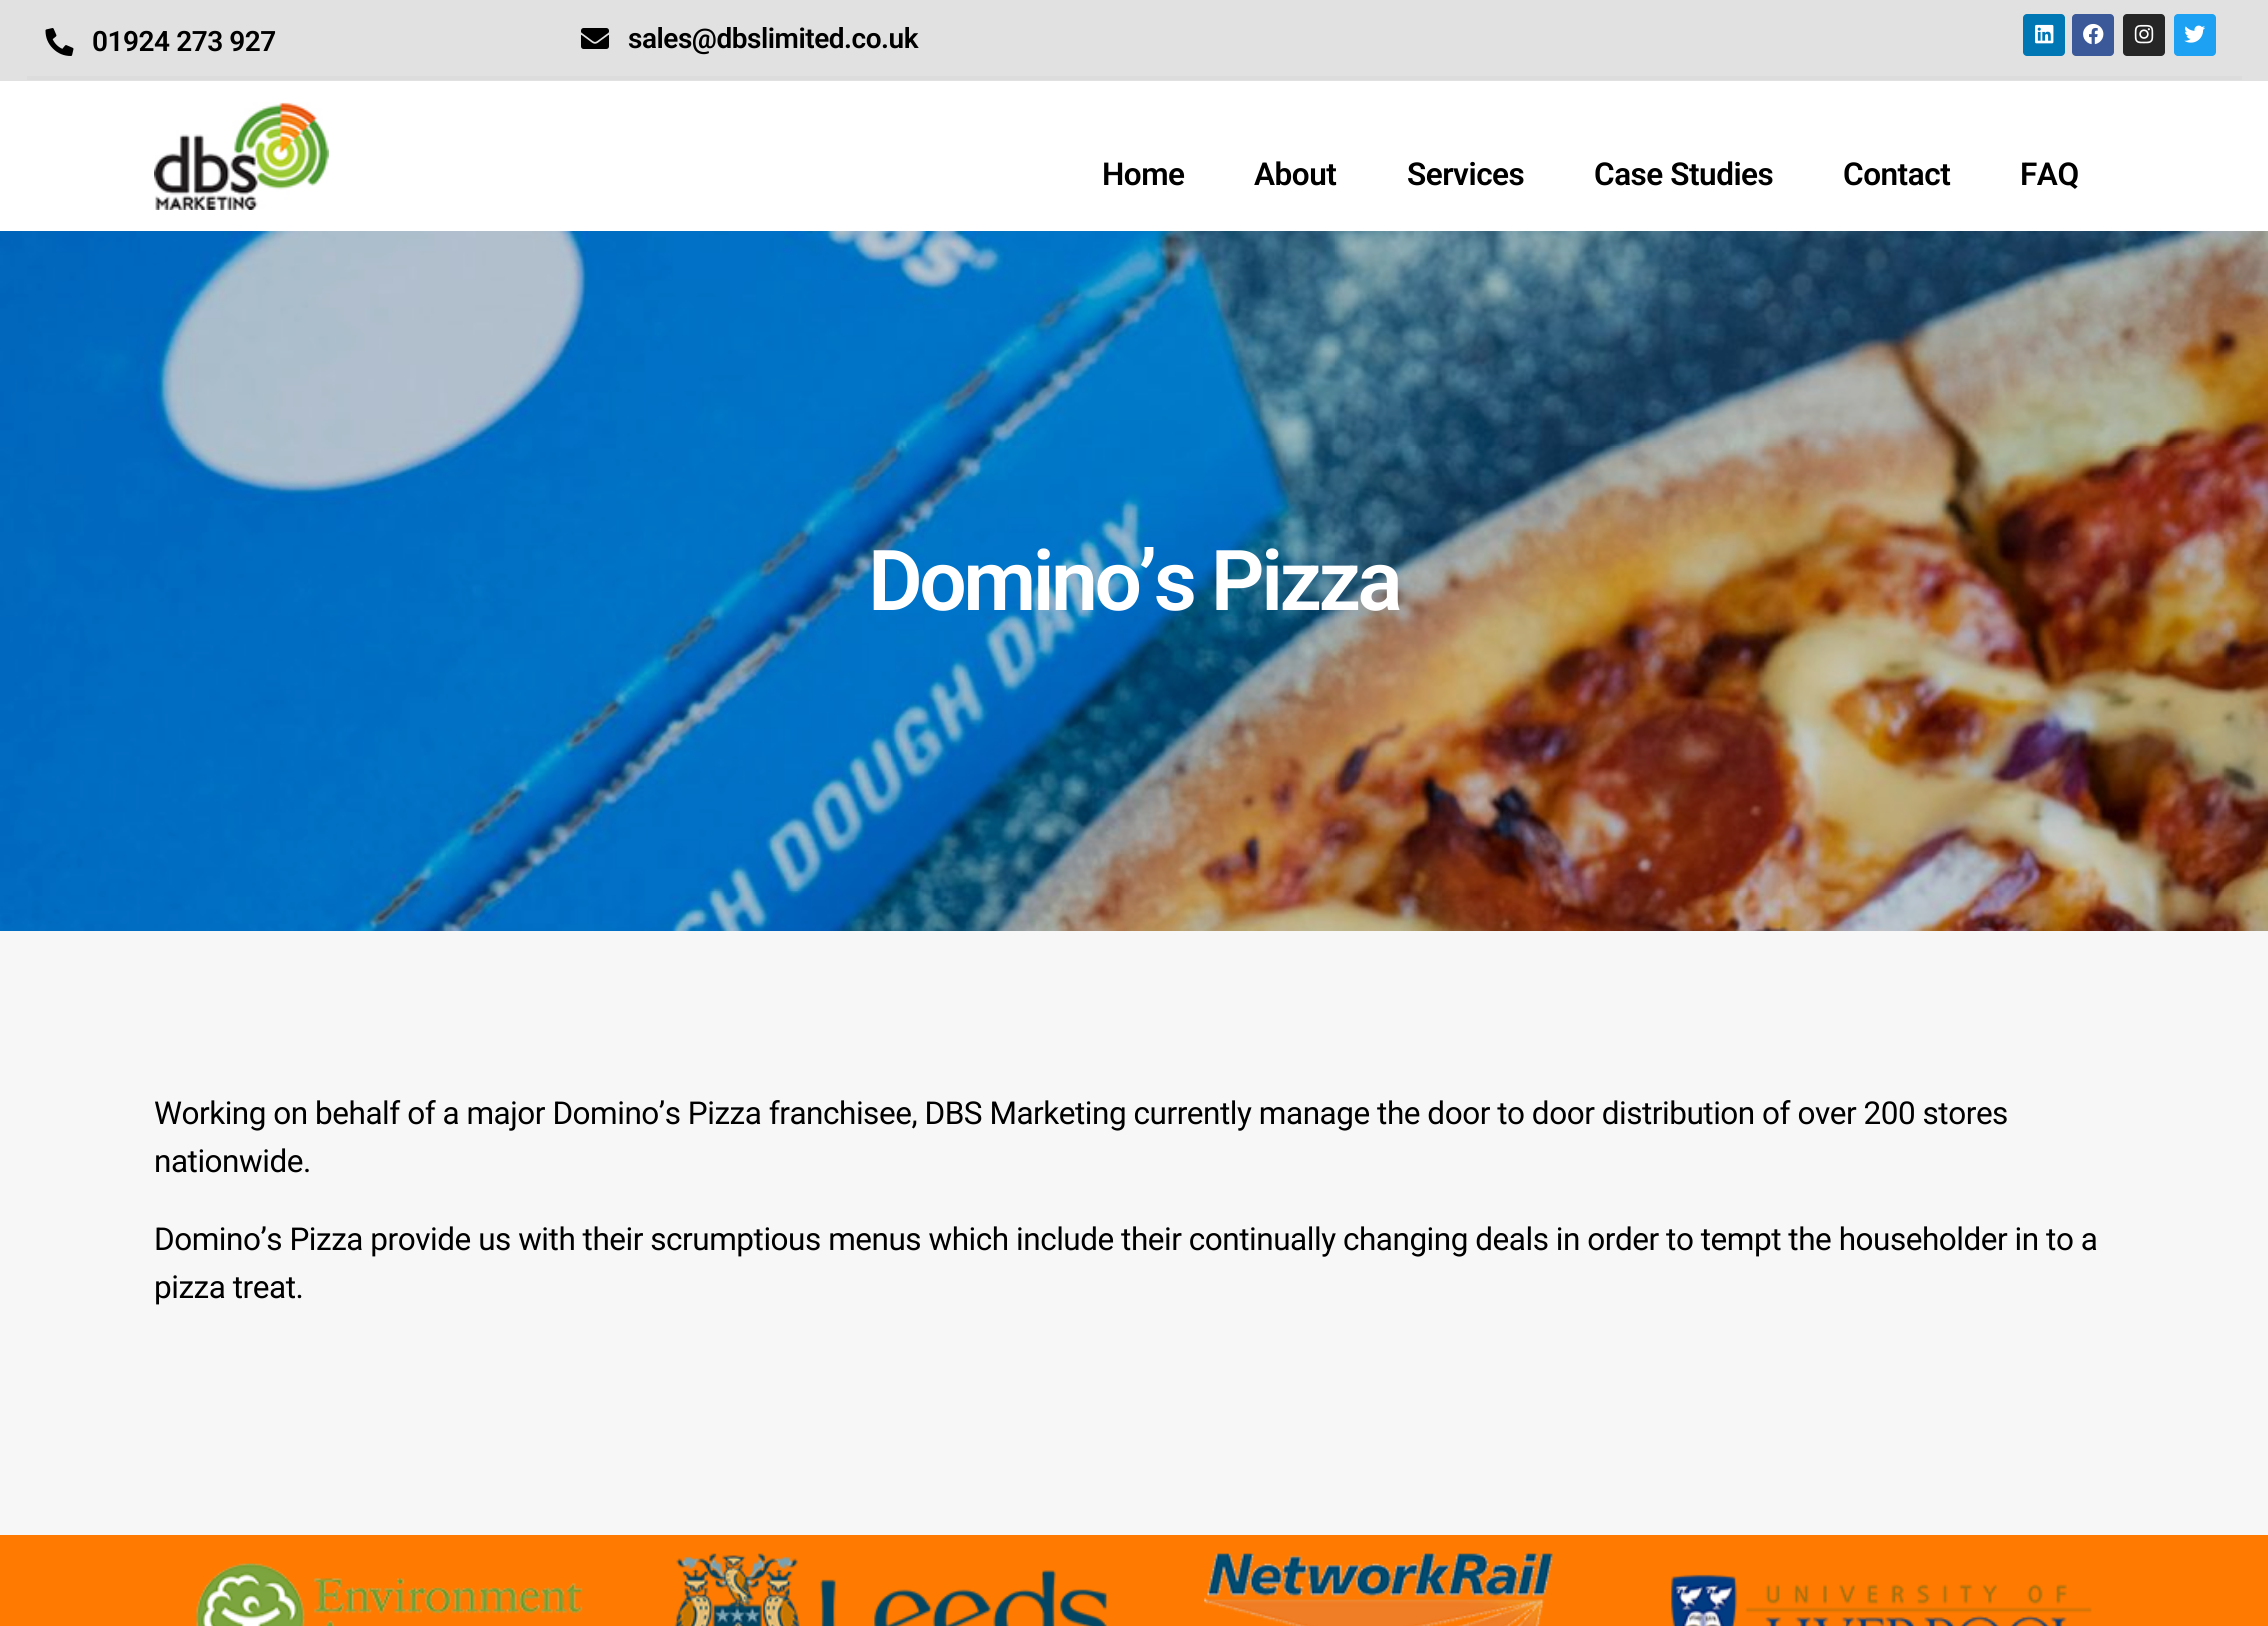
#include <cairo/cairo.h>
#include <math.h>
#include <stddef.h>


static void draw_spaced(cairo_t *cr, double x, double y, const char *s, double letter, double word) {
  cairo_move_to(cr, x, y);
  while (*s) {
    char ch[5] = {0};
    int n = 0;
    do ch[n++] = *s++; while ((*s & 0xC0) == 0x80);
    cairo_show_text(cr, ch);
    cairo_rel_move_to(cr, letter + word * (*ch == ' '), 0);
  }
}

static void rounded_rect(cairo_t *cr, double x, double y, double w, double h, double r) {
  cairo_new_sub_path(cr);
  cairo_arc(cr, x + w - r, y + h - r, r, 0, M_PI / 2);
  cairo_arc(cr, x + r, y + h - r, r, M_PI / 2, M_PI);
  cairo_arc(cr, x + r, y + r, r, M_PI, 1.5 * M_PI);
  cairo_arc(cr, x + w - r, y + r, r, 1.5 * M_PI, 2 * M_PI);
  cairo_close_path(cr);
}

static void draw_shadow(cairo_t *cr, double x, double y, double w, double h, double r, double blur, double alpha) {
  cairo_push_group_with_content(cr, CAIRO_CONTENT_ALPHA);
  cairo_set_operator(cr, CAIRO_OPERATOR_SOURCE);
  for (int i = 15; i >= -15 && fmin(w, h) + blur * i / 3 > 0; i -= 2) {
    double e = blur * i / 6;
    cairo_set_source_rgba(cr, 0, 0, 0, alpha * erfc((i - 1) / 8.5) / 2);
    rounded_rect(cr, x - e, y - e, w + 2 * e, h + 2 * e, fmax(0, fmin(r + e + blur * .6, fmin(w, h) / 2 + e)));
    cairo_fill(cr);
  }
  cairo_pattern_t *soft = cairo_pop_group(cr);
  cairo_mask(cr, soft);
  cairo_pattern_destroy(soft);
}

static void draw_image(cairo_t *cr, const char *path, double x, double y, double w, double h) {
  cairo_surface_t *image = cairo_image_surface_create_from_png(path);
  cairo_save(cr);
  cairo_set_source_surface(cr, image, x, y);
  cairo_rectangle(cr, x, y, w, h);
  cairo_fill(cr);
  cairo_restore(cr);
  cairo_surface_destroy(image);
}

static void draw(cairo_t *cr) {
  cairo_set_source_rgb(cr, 1, 1, 1);
  cairo_paint(cr);
  cairo_set_source_rgb(cr, 225 / 255.0, 225 / 255.0, 225 / 255.0);
  cairo_rectangle(cr, 0, 0, 2268, 81);
  cairo_fill(cr);
  draw_image(cr, "images/1.png", 45, 28, 29, 28);
  draw_image(cr, "images/2.png", 581, 28, 28, 21);
  cairo_set_source_rgb(cr, 0, 119 / 255.0, 181 / 255.0);
  rounded_rect(cr, 2023, 14, 42, 42, 4);
  cairo_fill(cr);
  draw_image(cr, "images/3.png", 2035, 24, 19, 20);
  cairo_set_source_rgb(cr, 59 / 255.0, 89 / 255.0, 152 / 255.0);
  rounded_rect(cr, 2072, 14, 42, 42, 4);
  cairo_fill(cr);
  draw_image(cr, "images/4.png", 2083, 23, 21, 22);
  cairo_set_source_rgb(cr, 38 / 255.0, 38 / 255.0, 38 / 255.0);
  rounded_rect(cr, 2123, 14, 42, 42, 4);
  cairo_fill(cr);
  draw_image(cr, "images/5.png", 2134, 24, 20, 20);
  cairo_set_source_rgb(cr, 29 / 255.0, 161 / 255.0, 242 / 255.0);
  rounded_rect(cr, 2174, 14, 42, 42, 4);
  cairo_fill(cr);
  draw_image(cr, "images/6.png", 2184, 25, 22, 18);
  cairo_save(cr);
  cairo_rectangle(cr, 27, 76, 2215, 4);
  cairo_clip(cr);
  cairo_set_source_rgb(cr, 0, 0, 0);
  draw_shadow(cr, 18, 107, 2233, 115, 0, 17.5, 0.5);
  cairo_restore(cr);
  draw_image(cr, "images/7.png", 154, 102, 175, 108);
  draw_image(cr, "images/8.png", 0, 231, 2268, 700);
  cairo_set_source_rgb(cr, 247 / 255.0, 247 / 255.0, 247 / 255.0);
  cairo_rectangle(cr, 0, 931, 2268, 604);
  cairo_fill(cr);
  cairo_set_source_rgb(cr, 1, 122 / 255.0, 0);
  cairo_rectangle(cr, 0, 1535, 2268, 91);
  cairo_fill(cr);
  draw_image(cr, "images/9.png", 196, 1563, 387, 63);
  draw_image(cr, "images/10.png", 674, 1553, 433, 73);
  draw_image(cr, "images/11.png", 1204, 1553, 349, 73);
  draw_image(cr, "images/12.png", 1671, 1574, 421, 52);
  cairo_select_font_face(cr, "Roboto SemiBold", CAIRO_FONT_SLANT_NORMAL, CAIRO_FONT_WEIGHT_NORMAL);
  cairo_set_font_size(cr, 28);
  cairo_set_source_rgb(cr, 0, 0, 0);
  draw_spaced(cr, 92, 51, "01924 273 927", -0.47, 0);
  draw_spaced(cr, 628, 48, "sales@dbslimited.co.uk", -0.47, 0);
  cairo_set_font_size(cr, 31.5);
  draw_spaced(cr, 1102, 185, "Home", -0.47, 0);
  draw_spaced(cr, 1254, 185, "About", -0.47, 0);
  draw_spaced(cr, 1407, 185, "Services", -0.47, 0);
  draw_spaced(cr, 1594, 185, "Case Studies", -0.47, 0);
  draw_spaced(cr, 1843, 185, "Contact", -0.47, 0);
  draw_spaced(cr, 2020, 185, "FAQ", -0.47, 0);
  cairo_set_font_size(cr, 84);
  cairo_set_source_rgb(cr, 1, 1, 1);
  draw_spaced(cr, 868, 610, "Domino’s Pizza", -3.5, 0);
  cairo_select_font_face(cr, "Roboto", CAIRO_FONT_SLANT_NORMAL, CAIRO_FONT_WEIGHT_NORMAL);
  cairo_set_font_size(cr, 31.5);
  cairo_set_source_rgb(cr, 0, 0, 0);
  draw_spaced(cr, 154, 1124, "Working on behalf of a major Domino’s Pizza franchisee, DBS Marketing currently manage the door to door distribution of over 200 stores", -0.47, 0);
  draw_spaced(cr, 154, 1172, "nationwide.", -0.47, 0);
  draw_spaced(cr, 154, 1250, "Domino’s Pizza provide us with their scrumptious menus which include their continually changing deals in order to tempt the householder in to a", -0.47, 0);
  draw_spaced(cr, 154, 1298, "pizza treat.", -0.47, 0);
}

int main(void) {
  cairo_surface_t *surface = cairo_image_surface_create(CAIRO_FORMAT_RGB24, 2268, 1626);
  cairo_t *cr = cairo_create(surface);
  cairo_font_options_t *options = cairo_font_options_create();
  cairo_font_options_set_hint_metrics(options, CAIRO_HINT_METRICS_OFF);
  cairo_font_options_set_hint_style(options, CAIRO_HINT_STYLE_NONE);
  cairo_set_font_options(cr, options);
  cairo_set_miter_limit(cr, 4);
  draw(cr);
  cairo_surface_write_to_png(surface, "out.png");
  cairo_font_options_destroy(options);
  cairo_destroy(cr);
  cairo_surface_destroy(surface);
  return 0;
}
